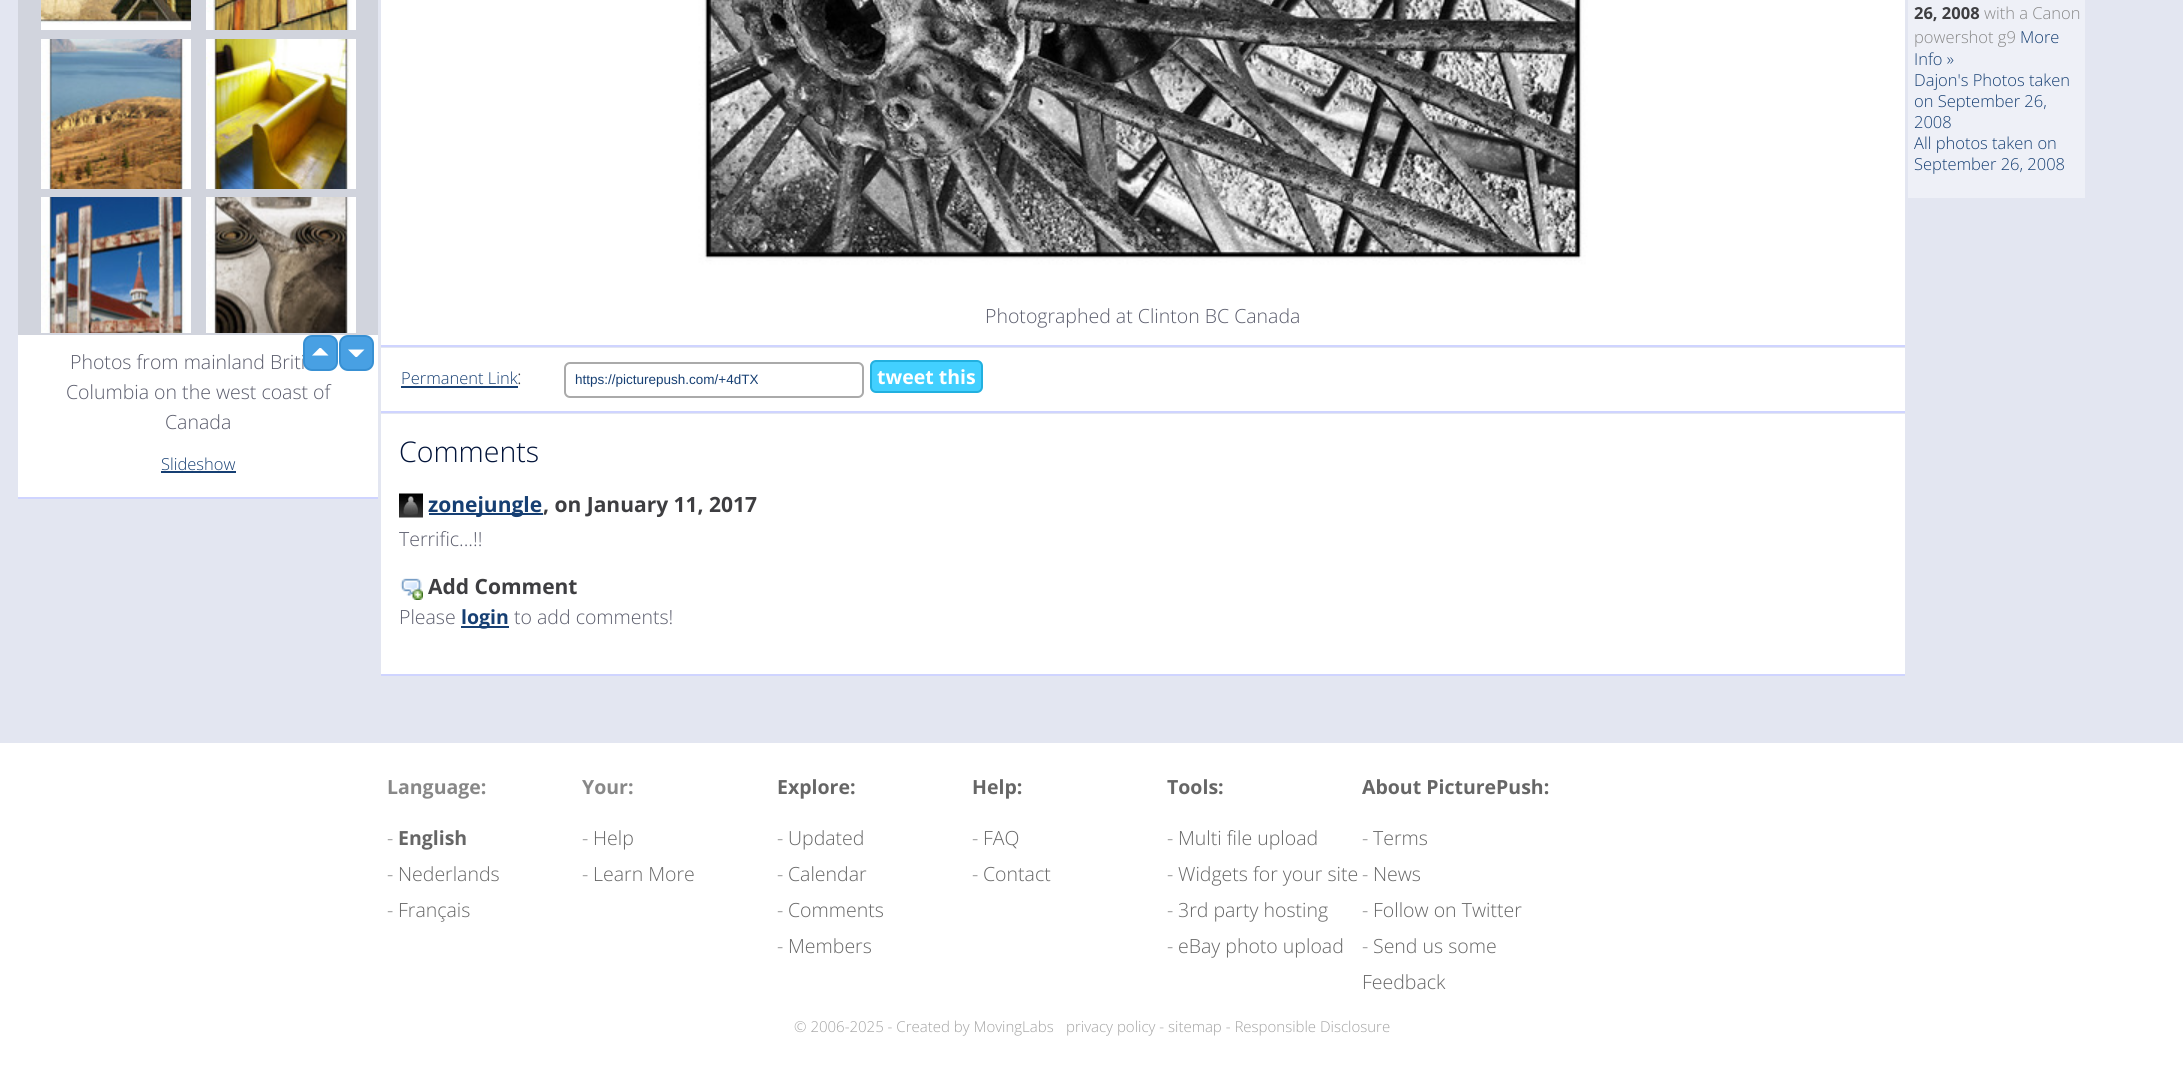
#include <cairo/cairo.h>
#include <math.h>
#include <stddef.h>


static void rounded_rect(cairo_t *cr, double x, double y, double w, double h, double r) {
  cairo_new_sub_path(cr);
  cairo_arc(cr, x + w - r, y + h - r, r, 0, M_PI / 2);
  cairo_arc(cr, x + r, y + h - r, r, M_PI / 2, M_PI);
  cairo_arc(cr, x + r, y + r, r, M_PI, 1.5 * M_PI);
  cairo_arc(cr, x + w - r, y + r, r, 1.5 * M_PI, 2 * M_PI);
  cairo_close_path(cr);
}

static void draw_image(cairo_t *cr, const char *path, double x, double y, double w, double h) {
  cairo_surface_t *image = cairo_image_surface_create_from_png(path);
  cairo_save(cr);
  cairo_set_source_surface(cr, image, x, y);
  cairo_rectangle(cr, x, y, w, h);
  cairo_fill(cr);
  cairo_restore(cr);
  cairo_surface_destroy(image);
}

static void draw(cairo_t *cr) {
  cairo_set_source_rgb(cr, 227 / 255.0, 230 / 255.0, 241 / 255.0);
  cairo_paint(cr);
  cairo_set_source_rgb(cr, 209 / 255.0, 212 / 255.0, 221 / 255.0);
  cairo_rectangle(cr, 18, 0, 360, 335);
  cairo_fill(cr);
  cairo_set_source_rgb(cr, 207 / 255.0, 212 / 255.0, 1);
  cairo_rectangle(cr, 18, 497, 360, 2);
  cairo_fill(cr);
  draw_image(cr, "images/1.png", 41, 0, 150, 30);
  draw_image(cr, "images/2.png", 206, 0, 150, 30);
  draw_image(cr, "images/3.png", 41, 39, 150, 150);
  draw_image(cr, "images/4.png", 206, 39, 150, 150);
  draw_image(cr, "images/5.png", 41, 197, 150, 136);
  draw_image(cr, "images/6.png", 206, 197, 150, 136);
  cairo_set_source_rgb(cr, 1, 1, 1);
  cairo_rectangle(cr, 18, 335, 360, 162);
  cairo_fill(cr);
  cairo_set_source_rgb(cr, 72 / 255.0, 160 / 255.0, 227 / 255.0);
  rounded_rect(cr, 340, 336, 33, 34, 8);
  cairo_fill_preserve(cr);
  cairo_set_source_rgb(cr, 56 / 255.0, 144 / 255.0, 211 / 255.0);
  cairo_stroke(cr);
  cairo_set_source_rgb(cr, 22 / 255.0, 63 / 255.0, 115 / 255.0);
  cairo_rectangle(cr, 161, 471, 75, 2);
  cairo_fill(cr);
  cairo_set_source_rgb(cr, 1, 1, 1);
  cairo_rectangle(cr, 381, 0, 1524, 345);
  cairo_fill(cr);
  cairo_set_source_rgb(cr, 207 / 255.0, 212 / 255.0, 1);
  cairo_rectangle(cr, 381, 345, 1524, 2);
  cairo_fill(cr);
  draw_image(cr, "images/7.png", 663, 0, 960, 300);
  cairo_set_source_rgb(cr, 238 / 255.0, 240 / 255.0, 247 / 255.0);
  cairo_rectangle(cr, 1908, 0, 177, 198);
  cairo_fill(cr);
  cairo_set_source_rgb(cr, 1, 1, 1);
  cairo_rectangle(cr, 381, 348, 1524, 63);
  cairo_fill(cr);
  cairo_set_source_rgb(cr, 207 / 255.0, 212 / 255.0, 1);
  cairo_rectangle(cr, 381, 411, 1524, 2);
  cairo_fill(cr);
  cairo_set_source_rgb(cr, 22 / 255.0, 63 / 255.0, 115 / 255.0);
  cairo_rectangle(cr, 401, 386, 117, 2);
  cairo_fill(cr);
  rounded_rect(cr, 565, 363, 298, 34, 5);
  cairo_set_source_rgb(cr, 170 / 255.0, 170 / 255.0, 170 / 255.0);
  cairo_stroke(cr);
  cairo_set_source_rgb(cr, 66 / 255.0, 208 / 255.0, 1);
  rounded_rect(cr, 871, 361, 111, 31, 5);
  cairo_fill_preserve(cr);
  cairo_set_source_rgb(cr, 34 / 255.0, 176 / 255.0, 223 / 255.0);
  cairo_stroke(cr);
  cairo_set_source_rgb(cr, 1, 1, 1);
  cairo_rectangle(cr, 381, 414, 1524, 260);
  cairo_fill(cr);
  cairo_set_source_rgb(cr, 207 / 255.0, 212 / 255.0, 1);
  cairo_rectangle(cr, 381, 674, 1524, 2);
  cairo_fill(cr);
  draw_image(cr, "images/8.png", 399, 493, 24, 25);
  cairo_set_source_rgb(cr, 22 / 255.0, 63 / 255.0, 115 / 255.0);
  cairo_rectangle(cr, 429, 513, 114, 2);
  cairo_fill(cr);
  draw_image(cr, "images/9.png", 400, 578, 23, 22);
  cairo_rectangle(cr, 461, 626, 48, 2);
  cairo_fill(cr);
  cairo_set_source_rgb(cr, 1, 1, 1);
  cairo_rectangle(cr, 0, 743, 2183, 331);
  cairo_fill(cr);
  cairo_select_font_face(cr, "Open Sans Light", CAIRO_FONT_SLANT_NORMAL, CAIRO_FONT_WEIGHT_NORMAL);
  cairo_set_font_size(cr, 19.5);
  cairo_set_source_rgb(cr, 90 / 255.0, 92 / 255.0, 108 / 255.0);
  cairo_move_to(cr, 70, 369);
  cairo_show_text(cr, "Photos from mainland Briti");
  cairo_set_source_rgb(cr, 72 / 255.0, 160 / 255.0, 227 / 255.0);
  rounded_rect(cr, 304, 336, 33, 34, 8);
  cairo_fill_preserve(cr);
  cairo_set_source_rgb(cr, 56 / 255.0, 144 / 255.0, 211 / 255.0);
  cairo_stroke(cr);
  cairo_set_source_rgb(cr, 1, 1, 1);
  cairo_new_path(cr);
  cairo_move_to(cr, 328.5, 355.5);
  cairo_line_to(cr, 312, 355.5);
  cairo_line_to(cr, 319.5, 348);
  cairo_line_to(cr, 321, 348);
  cairo_close_path(cr);
  cairo_move_to(cr, 348, 349.5);
  cairo_line_to(cr, 364.5, 349.5);
  cairo_line_to(cr, 357, 357);
  cairo_line_to(cr, 355.5, 357);
  cairo_close_path(cr);
  cairo_fill(cr);
  cairo_set_source_rgb(cr, 90 / 255.0, 92 / 255.0, 108 / 255.0);
  cairo_move_to(cr, 66, 399);
  cairo_show_text(cr, "Columbia on the west coast of");
  cairo_move_to(cr, 165, 429);
  cairo_show_text(cr, "Canada");
  cairo_set_font_size(cr, 16.5);
  cairo_set_source_rgb(cr, 22 / 255.0, 63 / 255.0, 115 / 255.0);
  cairo_move_to(cr, 161, 470);
  cairo_show_text(cr, "Slideshow");
  cairo_select_font_face(cr, "Open Sans", CAIRO_FONT_SLANT_NORMAL, CAIRO_FONT_WEIGHT_BOLD);
  cairo_set_source_rgb(cr, 62 / 255.0, 62 / 255.0, 65 / 255.0);
  cairo_move_to(cr, 1914, 19);
  cairo_show_text(cr, "26, 2008");
  cairo_select_font_face(cr, "Open Sans Light", CAIRO_FONT_SLANT_NORMAL, CAIRO_FONT_WEIGHT_NORMAL);
  cairo_set_source_rgb(cr, 136 / 255.0, 136 / 255.0, 136 / 255.0);
  cairo_move_to(cr, 1984, 19);
  cairo_show_text(cr, "with a Canon");
  cairo_move_to(cr, 1914, 43);
  cairo_show_text(cr, "powershot g9");
  cairo_set_source_rgb(cr, 22 / 255.0, 63 / 255.0, 115 / 255.0);
  cairo_move_to(cr, 2020, 43);
  cairo_show_text(cr, "More");
  cairo_move_to(cr, 1914, 65);
  cairo_show_text(cr, "Info »");
  cairo_move_to(cr, 1914, 86);
  cairo_show_text(cr, "Dajon's Photos taken");
  cairo_move_to(cr, 1914, 107);
  cairo_show_text(cr, "on September 26,");
  cairo_move_to(cr, 1914, 128);
  cairo_show_text(cr, "2008");
  cairo_move_to(cr, 1914, 149);
  cairo_show_text(cr, "All photos taken on");
  cairo_move_to(cr, 1914, 170);
  cairo_show_text(cr, "September 26, 2008");
  cairo_set_font_size(cr, 19.5);
  cairo_set_source_rgb(cr, 90 / 255.0, 92 / 255.0, 108 / 255.0);
  cairo_move_to(cr, 985, 323);
  cairo_show_text(cr, "Photographed at Clinton BC Canada");
  cairo_set_font_size(cr, 16.5);
  cairo_set_source_rgb(cr, 22 / 255.0, 63 / 255.0, 115 / 255.0);
  cairo_move_to(cr, 401, 384);
  cairo_show_text(cr, "Permanent Link");
  cairo_set_font_size(cr, 19.5);
  cairo_set_source_rgb(cr, 62 / 255.0, 62 / 255.0, 65 / 255.0);
  cairo_move_to(cr, 517, 384);
  cairo_show_text(cr, ":");
  cairo_select_font_face(cr, "Liberation Sans", CAIRO_FONT_SLANT_NORMAL, CAIRO_FONT_WEIGHT_NORMAL);
  cairo_set_font_size(cr, 13.5);
  cairo_set_source_rgb(cr, 22 / 255.0, 63 / 255.0, 115 / 255.0);
  cairo_move_to(cr, 575, 384);
  cairo_show_text(cr, "https://picturepush.com/+4dTX");
  cairo_select_font_face(cr, "Open Sans", CAIRO_FONT_SLANT_NORMAL, CAIRO_FONT_WEIGHT_BOLD);
  cairo_set_font_size(cr, 19.5);
  cairo_set_source_rgb(cr, 1, 1, 1);
  cairo_move_to(cr, 877, 384);
  cairo_show_text(cr, "tweet this");
  cairo_select_font_face(cr, "Open Sans Light", CAIRO_FONT_SLANT_NORMAL, CAIRO_FONT_WEIGHT_NORMAL);
  cairo_set_font_size(cr, 28.5);
  cairo_set_source_rgb(cr, 1 / 255.0, 19 / 255.0, 57 / 255.0);
  cairo_move_to(cr, 399, 462);
  cairo_show_text(cr, "Comments");
  cairo_select_font_face(cr, "Open Sans", CAIRO_FONT_SLANT_NORMAL, CAIRO_FONT_WEIGHT_BOLD);
  cairo_set_font_size(cr, 21);
  cairo_set_source_rgb(cr, 22 / 255.0, 63 / 255.0, 115 / 255.0);
  cairo_move_to(cr, 428, 512);
  cairo_show_text(cr, "zonejungle");
  cairo_set_source_rgb(cr, 62 / 255.0, 62 / 255.0, 65 / 255.0);
  cairo_move_to(cr, 543, 512);
  cairo_show_text(cr, ", on January 11, 2017");
  cairo_select_font_face(cr, "Open Sans Light", CAIRO_FONT_SLANT_NORMAL, CAIRO_FONT_WEIGHT_NORMAL);
  cairo_set_font_size(cr, 19.5);
  cairo_set_source_rgb(cr, 90 / 255.0, 92 / 255.0, 108 / 255.0);
  cairo_move_to(cr, 399, 546);
  cairo_show_text(cr, "Terrific...!!");
  cairo_select_font_face(cr, "Open Sans", CAIRO_FONT_SLANT_NORMAL, CAIRO_FONT_WEIGHT_BOLD);
  cairo_set_font_size(cr, 21);
  cairo_set_source_rgb(cr, 62 / 255.0, 62 / 255.0, 65 / 255.0);
  cairo_move_to(cr, 428, 594);
  cairo_show_text(cr, "Add Comment");
  cairo_select_font_face(cr, "Open Sans Light", CAIRO_FONT_SLANT_NORMAL, CAIRO_FONT_WEIGHT_NORMAL);
  cairo_set_font_size(cr, 19.5);
  cairo_set_source_rgb(cr, 90 / 255.0, 92 / 255.0, 108 / 255.0);
  cairo_move_to(cr, 399, 624);
  cairo_show_text(cr, "Please");
  cairo_select_font_face(cr, "Open Sans", CAIRO_FONT_SLANT_NORMAL, CAIRO_FONT_WEIGHT_BOLD);
  cairo_set_source_rgb(cr, 22 / 255.0, 63 / 255.0, 115 / 255.0);
  cairo_move_to(cr, 461, 624);
  cairo_show_text(cr, "login");
  cairo_select_font_face(cr, "Open Sans Light", CAIRO_FONT_SLANT_NORMAL, CAIRO_FONT_WEIGHT_NORMAL);
  cairo_set_source_rgb(cr, 90 / 255.0, 92 / 255.0, 108 / 255.0);
  cairo_move_to(cr, 514, 624);
  cairo_show_text(cr, "to add comments!");
  cairo_select_font_face(cr, "Open Sans", CAIRO_FONT_SLANT_NORMAL, CAIRO_FONT_WEIGHT_BOLD);
  cairo_set_source_rgb(cr, 136 / 255.0, 136 / 255.0, 136 / 255.0);
  cairo_move_to(cr, 387, 794);
  cairo_show_text(cr, "Language:");
  cairo_select_font_face(cr, "Open Sans Light", CAIRO_FONT_SLANT_NORMAL, CAIRO_FONT_WEIGHT_NORMAL);
  cairo_move_to(cr, 387, 845);
  cairo_show_text(cr, "-");
  cairo_select_font_face(cr, "Open Sans", CAIRO_FONT_SLANT_NORMAL, CAIRO_FONT_WEIGHT_BOLD);
  cairo_set_source_rgb(cr, 102 / 255.0, 102 / 255.0, 102 / 255.0);
  cairo_move_to(cr, 398, 845);
  cairo_show_text(cr, "English");
  cairo_select_font_face(cr, "Open Sans Light", CAIRO_FONT_SLANT_NORMAL, CAIRO_FONT_WEIGHT_NORMAL);
  cairo_set_source_rgb(cr, 136 / 255.0, 136 / 255.0, 136 / 255.0);
  cairo_move_to(cr, 387, 881);
  cairo_show_text(cr, "-");
  cairo_set_source_rgb(cr, 102 / 255.0, 102 / 255.0, 102 / 255.0);
  cairo_move_to(cr, 398, 881);
  cairo_show_text(cr, "Nederlands");
  cairo_set_source_rgb(cr, 136 / 255.0, 136 / 255.0, 136 / 255.0);
  cairo_move_to(cr, 387, 917);
  cairo_show_text(cr, "-");
  cairo_set_source_rgb(cr, 102 / 255.0, 102 / 255.0, 102 / 255.0);
  cairo_move_to(cr, 398, 917);
  cairo_show_text(cr, "Français");
  cairo_select_font_face(cr, "Open Sans", CAIRO_FONT_SLANT_NORMAL, CAIRO_FONT_WEIGHT_BOLD);
  cairo_set_source_rgb(cr, 136 / 255.0, 136 / 255.0, 136 / 255.0);
  cairo_move_to(cr, 582, 794);
  cairo_show_text(cr, "Your:");
  cairo_select_font_face(cr, "Open Sans Light", CAIRO_FONT_SLANT_NORMAL, CAIRO_FONT_WEIGHT_NORMAL);
  cairo_move_to(cr, 582, 845);
  cairo_show_text(cr, "-");
  cairo_set_source_rgb(cr, 102 / 255.0, 102 / 255.0, 102 / 255.0);
  cairo_move_to(cr, 593, 845);
  cairo_show_text(cr, "Help");
  cairo_set_source_rgb(cr, 136 / 255.0, 136 / 255.0, 136 / 255.0);
  cairo_move_to(cr, 582, 881);
  cairo_show_text(cr, "-");
  cairo_set_source_rgb(cr, 102 / 255.0, 102 / 255.0, 102 / 255.0);
  cairo_move_to(cr, 593, 881);
  cairo_show_text(cr, "Learn More");
  cairo_select_font_face(cr, "Open Sans", CAIRO_FONT_SLANT_NORMAL, CAIRO_FONT_WEIGHT_BOLD);
  cairo_move_to(cr, 777, 794);
  cairo_show_text(cr, "Explore:");
  cairo_select_font_face(cr, "Open Sans Light", CAIRO_FONT_SLANT_NORMAL, CAIRO_FONT_WEIGHT_NORMAL);
  cairo_set_source_rgb(cr, 136 / 255.0, 136 / 255.0, 136 / 255.0);
  cairo_move_to(cr, 777, 845);
  cairo_show_text(cr, "-");
  cairo_set_source_rgb(cr, 102 / 255.0, 102 / 255.0, 102 / 255.0);
  cairo_move_to(cr, 788, 845);
  cairo_show_text(cr, "Updated");
  cairo_set_source_rgb(cr, 136 / 255.0, 136 / 255.0, 136 / 255.0);
  cairo_move_to(cr, 777, 881);
  cairo_show_text(cr, "-");
  cairo_set_source_rgb(cr, 102 / 255.0, 102 / 255.0, 102 / 255.0);
  cairo_move_to(cr, 788, 881);
  cairo_show_text(cr, "Calendar");
  cairo_set_source_rgb(cr, 136 / 255.0, 136 / 255.0, 136 / 255.0);
  cairo_move_to(cr, 777, 917);
  cairo_show_text(cr, "-");
  cairo_set_source_rgb(cr, 102 / 255.0, 102 / 255.0, 102 / 255.0);
  cairo_move_to(cr, 788, 917);
  cairo_show_text(cr, "Comments");
  cairo_set_source_rgb(cr, 136 / 255.0, 136 / 255.0, 136 / 255.0);
  cairo_move_to(cr, 777, 953);
  cairo_show_text(cr, "-");
  cairo_set_source_rgb(cr, 102 / 255.0, 102 / 255.0, 102 / 255.0);
  cairo_move_to(cr, 788, 953);
  cairo_show_text(cr, "Members");
  cairo_select_font_face(cr, "Open Sans", CAIRO_FONT_SLANT_NORMAL, CAIRO_FONT_WEIGHT_BOLD);
  cairo_move_to(cr, 972, 794);
  cairo_show_text(cr, "Help:");
  cairo_select_font_face(cr, "Open Sans Light", CAIRO_FONT_SLANT_NORMAL, CAIRO_FONT_WEIGHT_NORMAL);
  cairo_set_source_rgb(cr, 136 / 255.0, 136 / 255.0, 136 / 255.0);
  cairo_move_to(cr, 972, 845);
  cairo_show_text(cr, "-");
  cairo_set_source_rgb(cr, 102 / 255.0, 102 / 255.0, 102 / 255.0);
  cairo_move_to(cr, 983, 845);
  cairo_show_text(cr, "FAQ");
  cairo_set_source_rgb(cr, 136 / 255.0, 136 / 255.0, 136 / 255.0);
  cairo_move_to(cr, 972, 881);
  cairo_show_text(cr, "-");
  cairo_set_source_rgb(cr, 102 / 255.0, 102 / 255.0, 102 / 255.0);
  cairo_move_to(cr, 983, 881);
  cairo_show_text(cr, "Contact");
  cairo_select_font_face(cr, "Open Sans", CAIRO_FONT_SLANT_NORMAL, CAIRO_FONT_WEIGHT_BOLD);
  cairo_move_to(cr, 1167, 794);
  cairo_show_text(cr, "Tools:");
  cairo_select_font_face(cr, "Open Sans Light", CAIRO_FONT_SLANT_NORMAL, CAIRO_FONT_WEIGHT_NORMAL);
  cairo_set_source_rgb(cr, 136 / 255.0, 136 / 255.0, 136 / 255.0);
  cairo_move_to(cr, 1167, 845);
  cairo_show_text(cr, "-");
  cairo_set_source_rgb(cr, 102 / 255.0, 102 / 255.0, 102 / 255.0);
  cairo_move_to(cr, 1178, 845);
  cairo_show_text(cr, "Multi file upload");
  cairo_set_source_rgb(cr, 136 / 255.0, 136 / 255.0, 136 / 255.0);
  cairo_move_to(cr, 1167, 881);
  cairo_show_text(cr, "-");
  cairo_set_source_rgb(cr, 102 / 255.0, 102 / 255.0, 102 / 255.0);
  cairo_move_to(cr, 1178, 881);
  cairo_show_text(cr, "Widgets for your site");
  cairo_set_source_rgb(cr, 136 / 255.0, 136 / 255.0, 136 / 255.0);
  cairo_move_to(cr, 1167, 917);
  cairo_show_text(cr, "-");
  cairo_set_source_rgb(cr, 102 / 255.0, 102 / 255.0, 102 / 255.0);
  cairo_move_to(cr, 1178, 917);
  cairo_show_text(cr, "3rd party hosting");
  cairo_set_source_rgb(cr, 136 / 255.0, 136 / 255.0, 136 / 255.0);
  cairo_move_to(cr, 1167, 953);
  cairo_show_text(cr, "-");
  cairo_set_source_rgb(cr, 102 / 255.0, 102 / 255.0, 102 / 255.0);
  cairo_move_to(cr, 1178, 953);
  cairo_show_text(cr, "eBay photo upload");
  cairo_select_font_face(cr, "Open Sans", CAIRO_FONT_SLANT_NORMAL, CAIRO_FONT_WEIGHT_BOLD);
  cairo_move_to(cr, 1362, 794);
  cairo_show_text(cr, "About PicturePush:");
  cairo_select_font_face(cr, "Open Sans Light", CAIRO_FONT_SLANT_NORMAL, CAIRO_FONT_WEIGHT_NORMAL);
  cairo_set_source_rgb(cr, 136 / 255.0, 136 / 255.0, 136 / 255.0);
  cairo_move_to(cr, 1362, 845);
  cairo_show_text(cr, "-");
  cairo_set_source_rgb(cr, 102 / 255.0, 102 / 255.0, 102 / 255.0);
  cairo_move_to(cr, 1373, 845);
  cairo_show_text(cr, "Terms");
  cairo_set_source_rgb(cr, 136 / 255.0, 136 / 255.0, 136 / 255.0);
  cairo_move_to(cr, 1362, 881);
  cairo_show_text(cr, "-");
  cairo_set_source_rgb(cr, 102 / 255.0, 102 / 255.0, 102 / 255.0);
  cairo_move_to(cr, 1373, 881);
  cairo_show_text(cr, "News");
  cairo_set_source_rgb(cr, 136 / 255.0, 136 / 255.0, 136 / 255.0);
  cairo_move_to(cr, 1362, 917);
  cairo_show_text(cr, "-");
  cairo_set_source_rgb(cr, 102 / 255.0, 102 / 255.0, 102 / 255.0);
  cairo_move_to(cr, 1373, 917);
  cairo_show_text(cr, "Follow on Twitter");
  cairo_set_source_rgb(cr, 136 / 255.0, 136 / 255.0, 136 / 255.0);
  cairo_move_to(cr, 1362, 953);
  cairo_show_text(cr, "-");
  cairo_set_source_rgb(cr, 102 / 255.0, 102 / 255.0, 102 / 255.0);
  cairo_move_to(cr, 1373, 953);
  cairo_show_text(cr, "Send us some");
  cairo_move_to(cr, 1362, 989);
  cairo_show_text(cr, "Feedback");
  cairo_set_font_size(cr, 15);
  cairo_set_source_rgb(cr, 163 / 255.0, 163 / 255.0, 163 / 255.0);
  cairo_move_to(cr, 794, 1032);
  cairo_show_text(cr, "© 2006-2025 - Created by MovingLabs");
  cairo_move_to(cr, 1066, 1032);
  cairo_show_text(cr, "privacy policy - sitemap - Responsible Disclosure");
}

int main(void) {
  cairo_surface_t *surface = cairo_image_surface_create(CAIRO_FORMAT_RGB24, 2183, 1074);
  cairo_t *cr = cairo_create(surface);
  cairo_font_options_t *options = cairo_font_options_create();
  cairo_font_options_set_hint_metrics(options, CAIRO_HINT_METRICS_OFF);
  cairo_font_options_set_hint_style(options, CAIRO_HINT_STYLE_NONE);
  cairo_set_font_options(cr, options);
  cairo_set_miter_limit(cr, 4);
  draw(cr);
  cairo_surface_write_to_png(surface, "out.png");
  cairo_font_options_destroy(options);
  cairo_destroy(cr);
  cairo_surface_destroy(surface);
  return 0;
}
